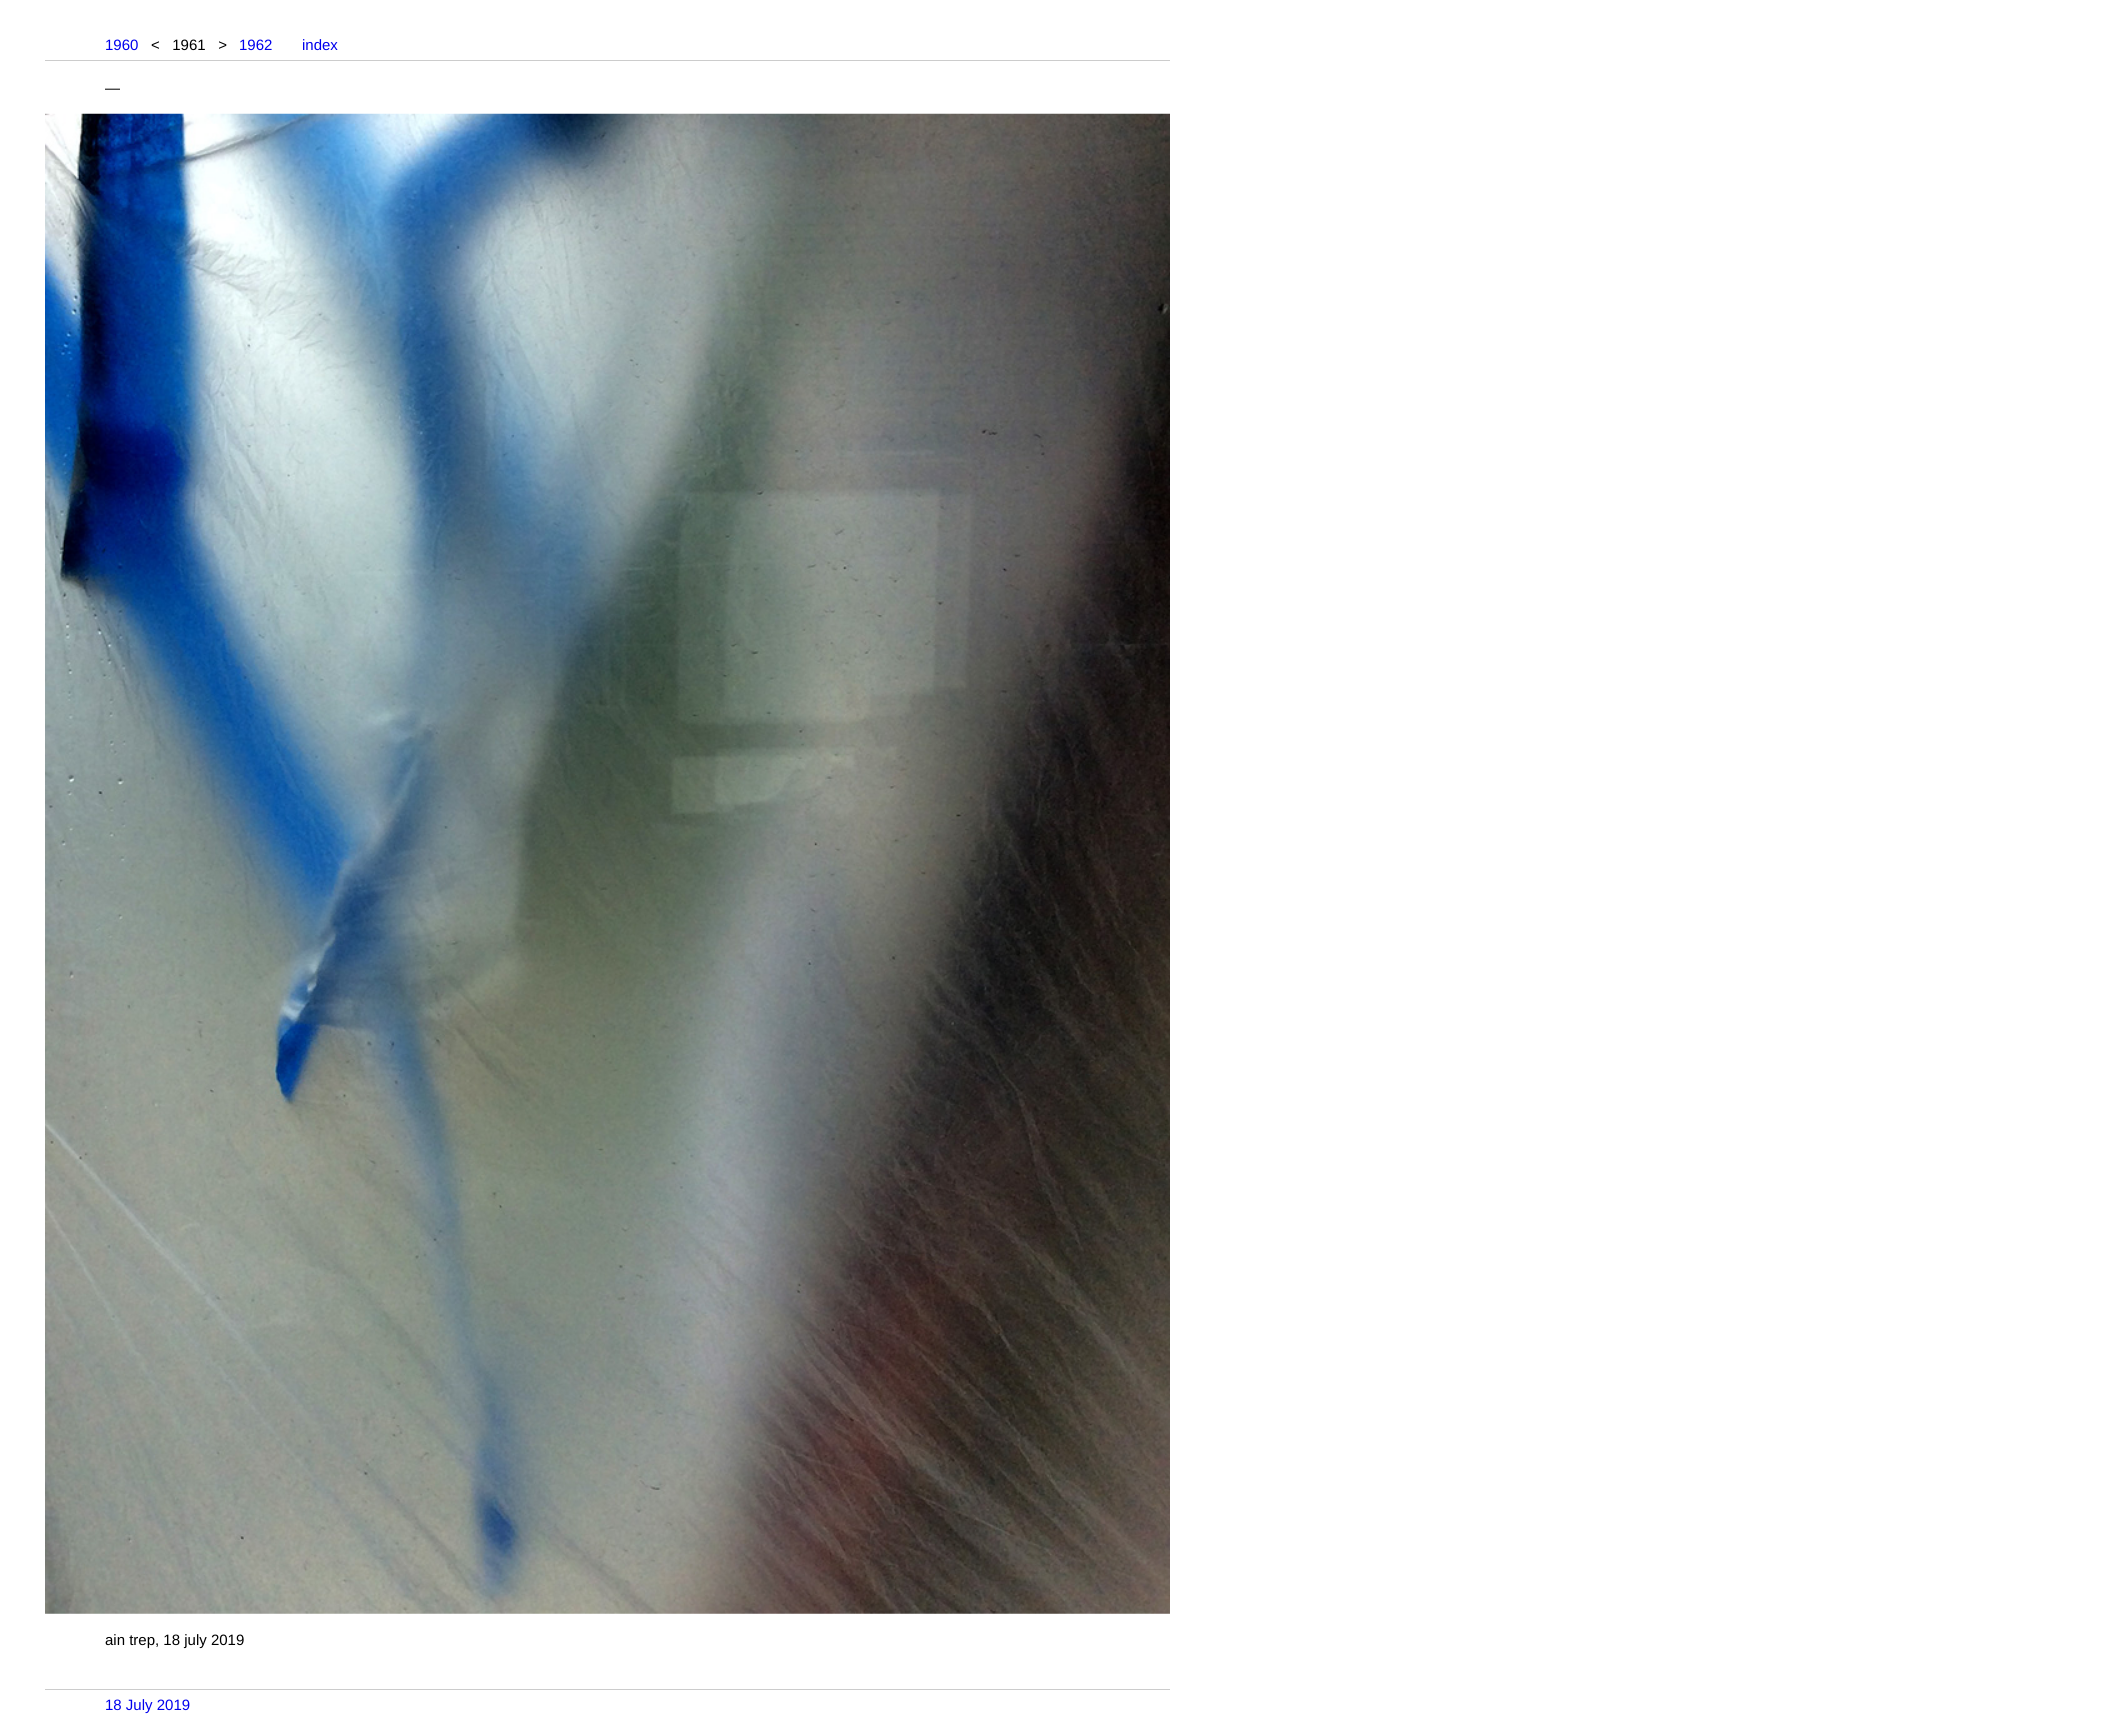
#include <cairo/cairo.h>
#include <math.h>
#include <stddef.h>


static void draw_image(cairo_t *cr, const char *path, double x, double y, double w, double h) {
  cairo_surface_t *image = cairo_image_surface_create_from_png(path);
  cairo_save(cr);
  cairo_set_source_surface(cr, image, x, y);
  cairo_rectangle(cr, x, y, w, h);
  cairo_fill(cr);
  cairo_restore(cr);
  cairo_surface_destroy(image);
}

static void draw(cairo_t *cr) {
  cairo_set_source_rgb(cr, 1, 1, 1);
  cairo_paint(cr);
  cairo_set_source_rgb(cr, 204 / 255.0, 204 / 255.0, 204 / 255.0);
  cairo_rectangle(cr, 45, 60, 1125, 1);
  cairo_fill(cr);
  draw_image(cr, "images/1.png", 45, 113, 1125, 1501);
  cairo_rectangle(cr, 45, 1689, 1125, 1);
  cairo_fill(cr);
  cairo_select_font_face(cr, "Liberation Sans", CAIRO_FONT_SLANT_NORMAL, CAIRO_FONT_WEIGHT_NORMAL);
  cairo_set_font_size(cr, 15);
  cairo_set_source_rgb(cr, 0, 0, 238 / 255.0);
  cairo_move_to(cr, 105, 50);
  cairo_show_text(cr, "1960");
  cairo_set_source_rgb(cr, 0, 0, 0);
  cairo_move_to(cr, 151, 50);
  cairo_show_text(cr, "<   1961   >");
  cairo_set_source_rgb(cr, 0, 0, 238 / 255.0);
  cairo_move_to(cr, 239, 50);
  cairo_show_text(cr, "1962");
  cairo_move_to(cr, 302, 50);
  cairo_show_text(cr, "index");
  cairo_set_source_rgb(cr, 0, 0, 0);
  cairo_move_to(cr, 105, 93);
  cairo_show_text(cr, "—");
  cairo_move_to(cr, 105, 1645);
  cairo_show_text(cr, "ain trep, 18 july 2019");
  cairo_set_source_rgb(cr, 0, 0, 238 / 255.0);
  cairo_move_to(cr, 105, 1710);
  cairo_show_text(cr, "18 July 2019");
}

int main(void) {
  cairo_surface_t *surface = cairo_image_surface_create(CAIRO_FORMAT_RGB24, 2115, 1727);
  cairo_t *cr = cairo_create(surface);
  cairo_font_options_t *options = cairo_font_options_create();
  cairo_font_options_set_hint_metrics(options, CAIRO_HINT_METRICS_OFF);
  cairo_font_options_set_hint_style(options, CAIRO_HINT_STYLE_NONE);
  cairo_set_font_options(cr, options);
  cairo_set_miter_limit(cr, 4);
  draw(cr);
  cairo_surface_write_to_png(surface, "out.png");
  cairo_font_options_destroy(options);
  cairo_destroy(cr);
  cairo_surface_destroy(surface);
  return 0;
}
